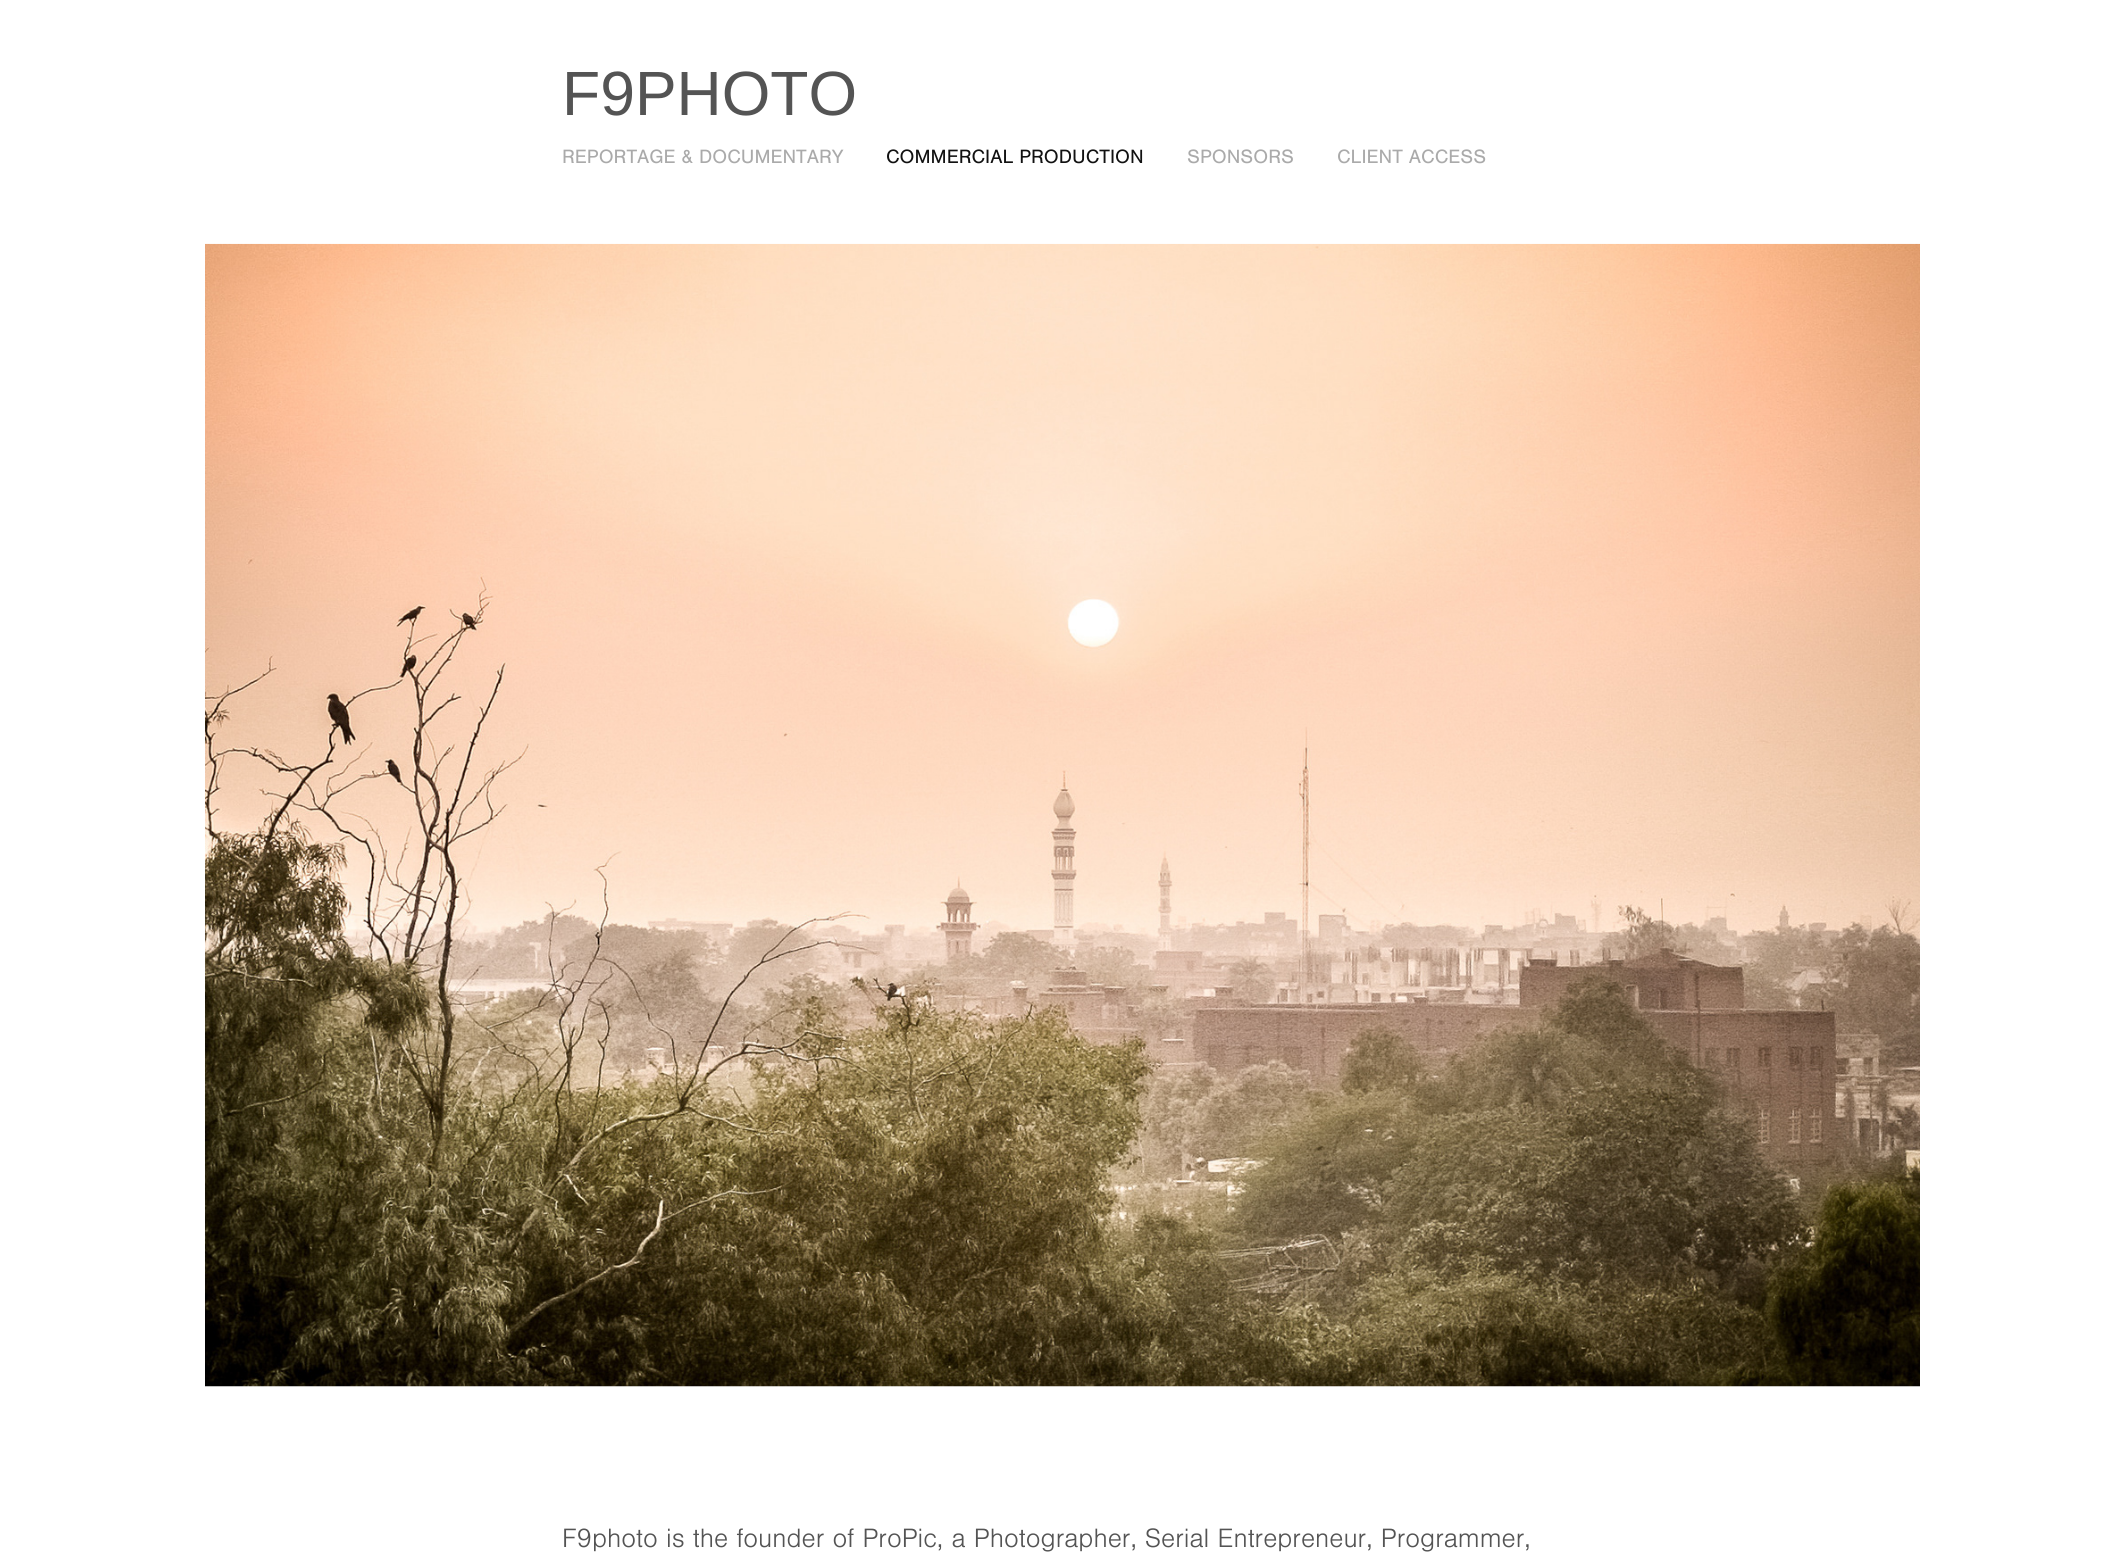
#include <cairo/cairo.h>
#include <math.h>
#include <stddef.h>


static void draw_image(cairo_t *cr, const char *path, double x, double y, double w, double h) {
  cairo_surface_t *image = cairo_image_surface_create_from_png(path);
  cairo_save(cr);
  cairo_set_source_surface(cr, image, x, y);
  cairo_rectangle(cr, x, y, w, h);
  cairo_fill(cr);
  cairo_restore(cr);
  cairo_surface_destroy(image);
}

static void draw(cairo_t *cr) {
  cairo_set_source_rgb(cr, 1, 1, 1);
  cairo_paint(cr);
  draw_image(cr, "images/1.png", 205, 243, 1715, 1144);
  cairo_select_font_face(cr, "Liberation Sans", CAIRO_FONT_SLANT_NORMAL, CAIRO_FONT_WEIGHT_NORMAL);
  cairo_set_font_size(cr, 62.5);
  cairo_set_source_rgb(cr, 84 / 255.0, 84 / 255.0, 84 / 255.0);
  cairo_move_to(cr, 562, 115);
  cairo_show_text(cr, "F9PHOTO");
  cairo_select_font_face(cr, "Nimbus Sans", CAIRO_FONT_SLANT_NORMAL, CAIRO_FONT_WEIGHT_NORMAL);
  cairo_set_font_size(cr, 20);
  cairo_set_source_rgb(cr, 170 / 255.0, 170 / 255.0, 170 / 255.0);
  cairo_move_to(cr, 562, 163);
  cairo_show_text(cr, "REPORTAGE & DOCUMENTARY");
  cairo_set_source_rgb(cr, 17 / 255.0, 17 / 255.0, 17 / 255.0);
  cairo_move_to(cr, 886, 163);
  cairo_show_text(cr, "COMMERCIAL PRODUCTION");
  cairo_set_source_rgb(cr, 170 / 255.0, 170 / 255.0, 170 / 255.0);
  cairo_move_to(cr, 1187, 163);
  cairo_show_text(cr, "SPONSORS");
  cairo_move_to(cr, 1337, 163);
  cairo_show_text(cr, "CLIENT ACCESS");
  cairo_select_font_face(cr, "Nimbus Sans Light", CAIRO_FONT_SLANT_NORMAL, CAIRO_FONT_WEIGHT_NORMAL);
  cairo_set_font_size(cr, 27.5);
  cairo_set_source_rgb(cr, 84 / 255.0, 84 / 255.0, 84 / 255.0);
  cairo_move_to(cr, 562, 1547);
  cairo_show_text(cr, "F9photo is the founder of ProPic, a Photographer, Serial Entrepreneur, Programmer,");
}

int main(void) {
  cairo_surface_t *surface = cairo_image_surface_create(CAIRO_FORMAT_RGB24, 2123, 1560);
  cairo_t *cr = cairo_create(surface);
  cairo_font_options_t *options = cairo_font_options_create();
  cairo_font_options_set_hint_metrics(options, CAIRO_HINT_METRICS_OFF);
  cairo_font_options_set_hint_style(options, CAIRO_HINT_STYLE_NONE);
  cairo_set_font_options(cr, options);
  cairo_set_miter_limit(cr, 4);
  draw(cr);
  cairo_surface_write_to_png(surface, "out.png");
  cairo_font_options_destroy(options);
  cairo_destroy(cr);
  cairo_surface_destroy(surface);
  return 0;
}
